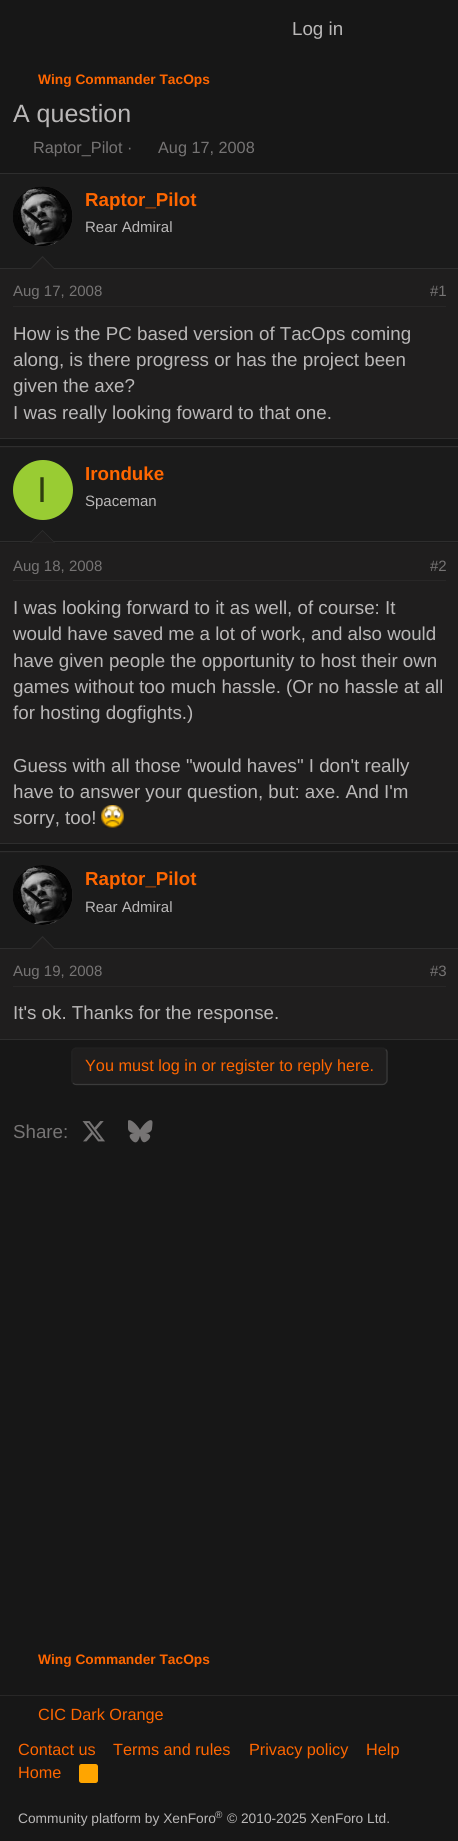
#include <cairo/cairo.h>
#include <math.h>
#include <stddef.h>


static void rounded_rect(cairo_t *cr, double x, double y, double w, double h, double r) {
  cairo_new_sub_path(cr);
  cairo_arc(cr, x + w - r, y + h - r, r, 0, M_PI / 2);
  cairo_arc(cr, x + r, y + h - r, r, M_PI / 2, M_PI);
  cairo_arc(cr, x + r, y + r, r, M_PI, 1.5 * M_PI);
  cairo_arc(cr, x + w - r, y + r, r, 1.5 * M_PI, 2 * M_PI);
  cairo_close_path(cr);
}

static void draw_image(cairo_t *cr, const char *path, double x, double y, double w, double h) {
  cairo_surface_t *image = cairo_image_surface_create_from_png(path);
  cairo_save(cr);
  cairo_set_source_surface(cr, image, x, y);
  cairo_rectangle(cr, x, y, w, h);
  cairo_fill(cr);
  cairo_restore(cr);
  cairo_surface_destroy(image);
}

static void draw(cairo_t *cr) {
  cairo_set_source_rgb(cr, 23 / 255.0, 23 / 255.0, 23 / 255.0);
  cairo_paint(cr);
  cairo_set_source_rgb(cr, 31 / 255.0, 30 / 255.0, 30 / 255.0);
  cairo_rectangle(cr, 0, 269, 458, 169);
  cairo_fill(cr);
  cairo_set_source_rgb(cr, 46 / 255.0, 46 / 255.0, 46 / 255.0);
  cairo_rectangle(cr, 0, 173, 458, 1);
  cairo_fill(cr);
  cairo_rectangle(cr, 0, 438, 458, 1);
  cairo_fill(cr);
  cairo_set_source_rgb(cr, 27 / 255.0, 27 / 255.0, 27 / 255.0);
  cairo_rectangle(cr, 0, 174, 458, 94);
  cairo_fill(cr);
  cairo_set_source_rgb(cr, 46 / 255.0, 46 / 255.0, 46 / 255.0);
  cairo_rectangle(cr, 0, 268, 458, 1);
  cairo_fill(cr);
  cairo_set_source_rgb(cr, 31 / 255.0, 30 / 255.0, 30 / 255.0);
  cairo_arc(cr, 43, 216, 30, 0, 2 * M_PI);
  cairo_fill(cr);
  draw_image(cr, "images/1.png", 13, 186, 60, 60);
  cairo_set_source_rgb(cr, 46 / 255.0, 46 / 255.0, 46 / 255.0);
  cairo_new_path(cr);
  cairo_move_to(cr, 55, 269);
  cairo_line_to(cr, 30, 269);
  cairo_line_to(cr, 42.5, 256);
  cairo_close_path(cr);
  cairo_fill(cr);
  cairo_set_source_rgb(cr, 31 / 255.0, 30 / 255.0, 30 / 255.0);
  cairo_new_path(cr);
  cairo_move_to(cr, 54, 269);
  cairo_line_to(cr, 31, 269);
  cairo_line_to(cr, 42.5, 257.5);
  cairo_close_path(cr);
  cairo_fill(cr);
  cairo_set_source_rgb(cr, 40 / 255.0, 39 / 255.0, 39 / 255.0);
  cairo_rectangle(cr, 13, 306, 433, 1);
  cairo_fill(cr);
  cairo_set_source_rgb(cr, 31 / 255.0, 30 / 255.0, 30 / 255.0);
  cairo_rectangle(cr, 0, 447, 458, 396);
  cairo_fill(cr);
  cairo_set_source_rgb(cr, 46 / 255.0, 46 / 255.0, 46 / 255.0);
  cairo_rectangle(cr, 0, 446, 458, 1);
  cairo_fill(cr);
  cairo_rectangle(cr, 0, 843, 458, 1);
  cairo_fill(cr);
  cairo_set_source_rgb(cr, 27 / 255.0, 27 / 255.0, 27 / 255.0);
  cairo_rectangle(cr, 0, 448, 458, 95);
  cairo_fill(cr);
  cairo_set_source_rgb(cr, 46 / 255.0, 46 / 255.0, 46 / 255.0);
  cairo_rectangle(cr, 0, 541, 458, 1);
  cairo_fill(cr);
  cairo_set_source_rgb(cr, 153 / 255.0, 204 / 255.0, 51 / 255.0);
  cairo_arc(cr, 43, 490, 30, 0, 2 * M_PI);
  cairo_fill(cr);
  cairo_set_source_rgb(cr, 46 / 255.0, 46 / 255.0, 46 / 255.0);
  cairo_new_path(cr);
  cairo_move_to(cr, 55, 542.5);
  cairo_line_to(cr, 30, 542.5);
  cairo_line_to(cr, 42.5, 530);
  cairo_close_path(cr);
  cairo_fill(cr);
  cairo_set_source_rgb(cr, 31 / 255.0, 30 / 255.0, 30 / 255.0);
  cairo_new_path(cr);
  cairo_move_to(cr, 54, 542.5);
  cairo_line_to(cr, 31, 542.5);
  cairo_line_to(cr, 42.5, 531);
  cairo_close_path(cr);
  cairo_fill(cr);
  cairo_set_source_rgb(cr, 40 / 255.0, 39 / 255.0, 39 / 255.0);
  cairo_rectangle(cr, 13, 580, 433, 1);
  cairo_fill(cr);
  draw_image(cr, "images/2.png", 101, 805, 23, 23);
  cairo_set_source_rgb(cr, 31 / 255.0, 30 / 255.0, 30 / 255.0);
  cairo_rectangle(cr, 0, 852, 458, 187);
  cairo_fill(cr);
  cairo_set_source_rgb(cr, 46 / 255.0, 46 / 255.0, 46 / 255.0);
  cairo_rectangle(cr, 0, 851, 458, 1);
  cairo_fill(cr);
  cairo_rectangle(cr, 0, 1039, 458, 1);
  cairo_fill(cr);
  cairo_set_source_rgb(cr, 27 / 255.0, 27 / 255.0, 27 / 255.0);
  cairo_rectangle(cr, 0, 853, 458, 95);
  cairo_fill(cr);
  cairo_set_source_rgb(cr, 46 / 255.0, 46 / 255.0, 46 / 255.0);
  cairo_rectangle(cr, 0, 948, 458, 1);
  cairo_fill(cr);
  cairo_set_source_rgb(cr, 31 / 255.0, 30 / 255.0, 30 / 255.0);
  cairo_arc(cr, 43, 895, 30, 0, 2 * M_PI);
  cairo_fill(cr);
  draw_image(cr, "images/3.png", 13, 865, 59, 60);
  cairo_set_source_rgb(cr, 46 / 255.0, 46 / 255.0, 46 / 255.0);
  cairo_new_path(cr);
  cairo_move_to(cr, 55, 949);
  cairo_line_to(cr, 30, 949);
  cairo_line_to(cr, 42.5, 936);
  cairo_close_path(cr);
  cairo_fill(cr);
  cairo_set_source_rgb(cr, 31 / 255.0, 30 / 255.0, 30 / 255.0);
  cairo_new_path(cr);
  cairo_move_to(cr, 54, 949);
  cairo_line_to(cr, 31, 949);
  cairo_line_to(cr, 42.5, 937.5);
  cairo_close_path(cr);
  cairo_fill(cr);
  cairo_set_source_rgb(cr, 40 / 255.0, 39 / 255.0, 39 / 255.0);
  cairo_rectangle(cr, 13, 986, 433, 1);
  cairo_fill(cr);
  cairo_set_source_rgb(cr, 31 / 255.0, 30 / 255.0, 30 / 255.0);
  rounded_rect(cr, 71, 1048, 317, 37, 5);
  cairo_fill(cr);
  cairo_new_path(cr);
  cairo_move_to(cr, 385.5, 1049.5);
  cairo_curve_to(cr, 386.5, 1050, 387, 1051.5, 387, 1052.5);
  cairo_line_to(cr, 387, 1080);
  cairo_curve_to(cr, 387, 1081, 386.5, 1082.5, 385.5, 1083);
  cairo_curve_to(cr, 385, 1084, 383.5, 1084.5, 382.5, 1084.5);
  cairo_line_to(cr, 76, 1084.5);
  cairo_curve_to(cr, 75, 1084.5, 74, 1084, 73, 1083);
  cairo_set_source_rgb(cr, 59 / 255.0, 59 / 255.0, 59 / 255.0);
  cairo_set_line_width(cr, 1.2);
  cairo_stroke(cr);
  cairo_new_path(cr);
  cairo_move_to(cr, 73, 1083);
  cairo_curve_to(cr, 72.5, 1082.5, 72, 1081, 72, 1080);
  cairo_line_to(cr, 72, 1052.5);
  cairo_curve_to(cr, 72, 1051.5, 72.5, 1050, 73, 1049.5);
  cairo_curve_to(cr, 74, 1048.5, 75, 1048, 76, 1048);
  cairo_line_to(cr, 382.5, 1048);
  cairo_curve_to(cr, 383.5, 1048, 385, 1048.5, 385.5, 1049.5);
  cairo_set_source_rgb(cr, 33 / 255.0, 33 / 255.0, 33 / 255.0);
  cairo_stroke(cr);
  draw_image(cr, "images/4.png", 82, 1121, 23, 21);
  draw_image(cr, "images/5.png", 128, 1120, 25, 23);
  cairo_set_source_rgb(cr, 40 / 255.0, 39 / 255.0, 39 / 255.0);
  cairo_rectangle(cr, 0, 1695, 458, 1);
  cairo_fill(cr);
  cairo_set_source_rgb(cr, 1, 165 / 255.0, 0);
  rounded_rect(cr, 79, 1764, 19, 19, 2.5);
  cairo_fill(cr);
  cairo_select_font_face(cr, "Liberation Sans", CAIRO_FONT_SLANT_NORMAL, CAIRO_FONT_WEIGHT_NORMAL);
  cairo_set_font_size(cr, 18.75);
  cairo_set_source_rgb(cr, 186 / 255.0, 184 / 255.0, 184 / 255.0);
  cairo_move_to(cr, 292, 35);
  cairo_show_text(cr, "Log in");
  cairo_select_font_face(cr, "Liberation Sans", CAIRO_FONT_SLANT_NORMAL, CAIRO_FONT_WEIGHT_BOLD);
  cairo_set_font_size(cr, 13.75);
  cairo_set_source_rgb(cr, 1, 102 / 255.0, 0);
  cairo_move_to(cr, 38, 84);
  cairo_show_text(cr, "Wing Commander TacOps");
  cairo_select_font_face(cr, "Liberation Sans", CAIRO_FONT_SLANT_NORMAL, CAIRO_FONT_WEIGHT_NORMAL);
  cairo_set_font_size(cr, 25);
  cairo_set_source_rgb(cr, 186 / 255.0, 184 / 255.0, 184 / 255.0);
  cairo_move_to(cr, 13, 122);
  cairo_show_text(cr, "A question");
  cairo_set_font_size(cr, 16.25);
  cairo_set_source_rgb(cr, 118 / 255.0, 116 / 255.0, 116 / 255.0);
  cairo_move_to(cr, 33, 153);
  cairo_show_text(cr, "Raptor_Pilot ·");
  cairo_move_to(cr, 158, 153);
  cairo_show_text(cr, "Aug 17, 2008");
  cairo_select_font_face(cr, "Liberation Sans", CAIRO_FONT_SLANT_NORMAL, CAIRO_FONT_WEIGHT_BOLD);
  cairo_set_font_size(cr, 18.75);
  cairo_set_source_rgb(cr, 1, 102 / 255.0, 0);
  cairo_move_to(cr, 85, 206);
  cairo_show_text(cr, "Raptor_Pilot");
  cairo_select_font_face(cr, "Liberation Sans", CAIRO_FONT_SLANT_NORMAL, CAIRO_FONT_WEIGHT_NORMAL);
  cairo_set_font_size(cr, 15);
  cairo_set_source_rgb(cr, 186 / 255.0, 184 / 255.0, 184 / 255.0);
  cairo_move_to(cr, 85, 232);
  cairo_show_text(cr, "Rear Admiral");
  cairo_set_source_rgb(cr, 118 / 255.0, 116 / 255.0, 116 / 255.0);
  cairo_move_to(cr, 13, 296);
  cairo_show_text(cr, "Aug 17, 2008");
  cairo_move_to(cr, 430, 296);
  cairo_show_text(cr, "#1");
  cairo_set_font_size(cr, 18.75);
  cairo_set_source_rgb(cr, 186 / 255.0, 184 / 255.0, 184 / 255.0);
  cairo_move_to(cr, 13, 340);
  cairo_show_text(cr, "How is the PC based version of TacOps coming");
  cairo_move_to(cr, 13, 366);
  cairo_show_text(cr, "along, is there progress or has the project been");
  cairo_move_to(cr, 13, 392);
  cairo_show_text(cr, "given the axe?");
  cairo_move_to(cr, 13, 419);
  cairo_show_text(cr, "I was really looking foward to that one.");
  cairo_set_font_size(cr, 36);
  cairo_set_source_rgb(cr, 46 / 255.0, 61 / 255.0, 15 / 255.0);
  cairo_move_to(cr, 37, 502);
  cairo_show_text(cr, "I");
  cairo_select_font_face(cr, "Liberation Sans", CAIRO_FONT_SLANT_NORMAL, CAIRO_FONT_WEIGHT_BOLD);
  cairo_set_font_size(cr, 18.75);
  cairo_set_source_rgb(cr, 1, 102 / 255.0, 0);
  cairo_move_to(cr, 85, 480);
  cairo_show_text(cr, "Ironduke");
  cairo_select_font_face(cr, "Liberation Sans", CAIRO_FONT_SLANT_NORMAL, CAIRO_FONT_WEIGHT_NORMAL);
  cairo_set_font_size(cr, 15);
  cairo_set_source_rgb(cr, 186 / 255.0, 184 / 255.0, 184 / 255.0);
  cairo_move_to(cr, 85, 506);
  cairo_show_text(cr, "Spaceman");
  cairo_set_source_rgb(cr, 118 / 255.0, 116 / 255.0, 116 / 255.0);
  cairo_move_to(cr, 13, 571);
  cairo_show_text(cr, "Aug 18, 2008");
  cairo_move_to(cr, 430, 571);
  cairo_show_text(cr, "#2");
  cairo_set_font_size(cr, 18.75);
  cairo_set_source_rgb(cr, 186 / 255.0, 184 / 255.0, 184 / 255.0);
  cairo_move_to(cr, 13, 614);
  cairo_show_text(cr, "I was looking forward to it as well, of course: It");
  cairo_move_to(cr, 13, 640);
  cairo_show_text(cr, "would have saved me a lot of work, and also would");
  cairo_move_to(cr, 13, 667);
  cairo_show_text(cr, "have given people the opportunity to host their own");
  cairo_move_to(cr, 13, 693);
  cairo_show_text(cr, "games without too much hassle. (Or no hassle at all");
  cairo_move_to(cr, 13, 719);
  cairo_show_text(cr, "for hosting dogfights.)");
  cairo_move_to(cr, 13, 772);
  cairo_show_text(cr, "Guess with all those \"would haves\" I don't really");
  cairo_move_to(cr, 13, 798);
  cairo_show_text(cr, "have to answer your question, but: axe. And I'm");
  cairo_move_to(cr, 13, 824);
  cairo_show_text(cr, "sorry, too!");
  cairo_select_font_face(cr, "Liberation Sans", CAIRO_FONT_SLANT_NORMAL, CAIRO_FONT_WEIGHT_BOLD);
  cairo_set_source_rgb(cr, 1, 102 / 255.0, 0);
  cairo_move_to(cr, 85, 885);
  cairo_show_text(cr, "Raptor_Pilot");
  cairo_select_font_face(cr, "Liberation Sans", CAIRO_FONT_SLANT_NORMAL, CAIRO_FONT_WEIGHT_NORMAL);
  cairo_set_font_size(cr, 15);
  cairo_set_source_rgb(cr, 186 / 255.0, 184 / 255.0, 184 / 255.0);
  cairo_move_to(cr, 85, 912);
  cairo_show_text(cr, "Rear Admiral");
  cairo_set_source_rgb(cr, 118 / 255.0, 116 / 255.0, 116 / 255.0);
  cairo_move_to(cr, 13, 976);
  cairo_show_text(cr, "Aug 19, 2008");
  cairo_move_to(cr, 430, 976);
  cairo_show_text(cr, "#3");
  cairo_set_font_size(cr, 18.75);
  cairo_set_source_rgb(cr, 186 / 255.0, 184 / 255.0, 184 / 255.0);
  cairo_move_to(cr, 13, 1019);
  cairo_show_text(cr, "It's ok. Thanks for the response.");
  cairo_set_font_size(cr, 16.25);
  cairo_set_source_rgb(cr, 1, 102 / 255.0, 0);
  cairo_move_to(cr, 85, 1071);
  cairo_show_text(cr, "You must log in or register to reply here.");
  cairo_set_font_size(cr, 18.75);
  cairo_set_source_rgb(cr, 118 / 255.0, 116 / 255.0, 116 / 255.0);
  cairo_move_to(cr, 13, 1138);
  cairo_show_text(cr, "Share:");
  cairo_select_font_face(cr, "Liberation Sans", CAIRO_FONT_SLANT_NORMAL, CAIRO_FONT_WEIGHT_BOLD);
  cairo_set_font_size(cr, 13.75);
  cairo_set_source_rgb(cr, 1, 102 / 255.0, 0);
  cairo_move_to(cr, 38, 1664);
  cairo_show_text(cr, "Wing Commander TacOps");
  cairo_select_font_face(cr, "Liberation Sans", CAIRO_FONT_SLANT_NORMAL, CAIRO_FONT_WEIGHT_NORMAL);
  cairo_set_font_size(cr, 16.25);
  cairo_move_to(cr, 38, 1720);
  cairo_show_text(cr, "CIC Dark Orange");
  cairo_move_to(cr, 18, 1755);
  cairo_show_text(cr, "Contact us");
  cairo_move_to(cr, 113, 1755);
  cairo_show_text(cr, "Terms and rules");
  cairo_move_to(cr, 249, 1755);
  cairo_show_text(cr, "Privacy policy");
  cairo_move_to(cr, 366, 1755);
  cairo_show_text(cr, "Help");
  cairo_move_to(cr, 18, 1778);
  cairo_show_text(cr, "Home");
  cairo_set_font_size(cr, 13.75);
  cairo_set_source_rgb(cr, 186 / 255.0, 184 / 255.0, 184 / 255.0);
  cairo_move_to(cr, 18, 1823);
  cairo_show_text(cr, "Community platform by XenForo");
  cairo_set_font_size(cr, 10);
  cairo_move_to(cr, 215, 1818);
  cairo_show_text(cr, "®");
  cairo_set_font_size(cr, 13.75);
  cairo_move_to(cr, 227, 1823);
  cairo_show_text(cr, "© 2010-2025 XenForo Ltd.");
}

int main(void) {
  cairo_surface_t *surface = cairo_image_surface_create(CAIRO_FORMAT_RGB24, 458, 1841);
  cairo_t *cr = cairo_create(surface);
  cairo_font_options_t *options = cairo_font_options_create();
  cairo_font_options_set_hint_metrics(options, CAIRO_HINT_METRICS_OFF);
  cairo_font_options_set_hint_style(options, CAIRO_HINT_STYLE_NONE);
  cairo_set_font_options(cr, options);
  cairo_set_miter_limit(cr, 4);
  draw(cr);
  cairo_surface_write_to_png(surface, "out.png");
  cairo_font_options_destroy(options);
  cairo_destroy(cr);
  cairo_surface_destroy(surface);
  return 0;
}
